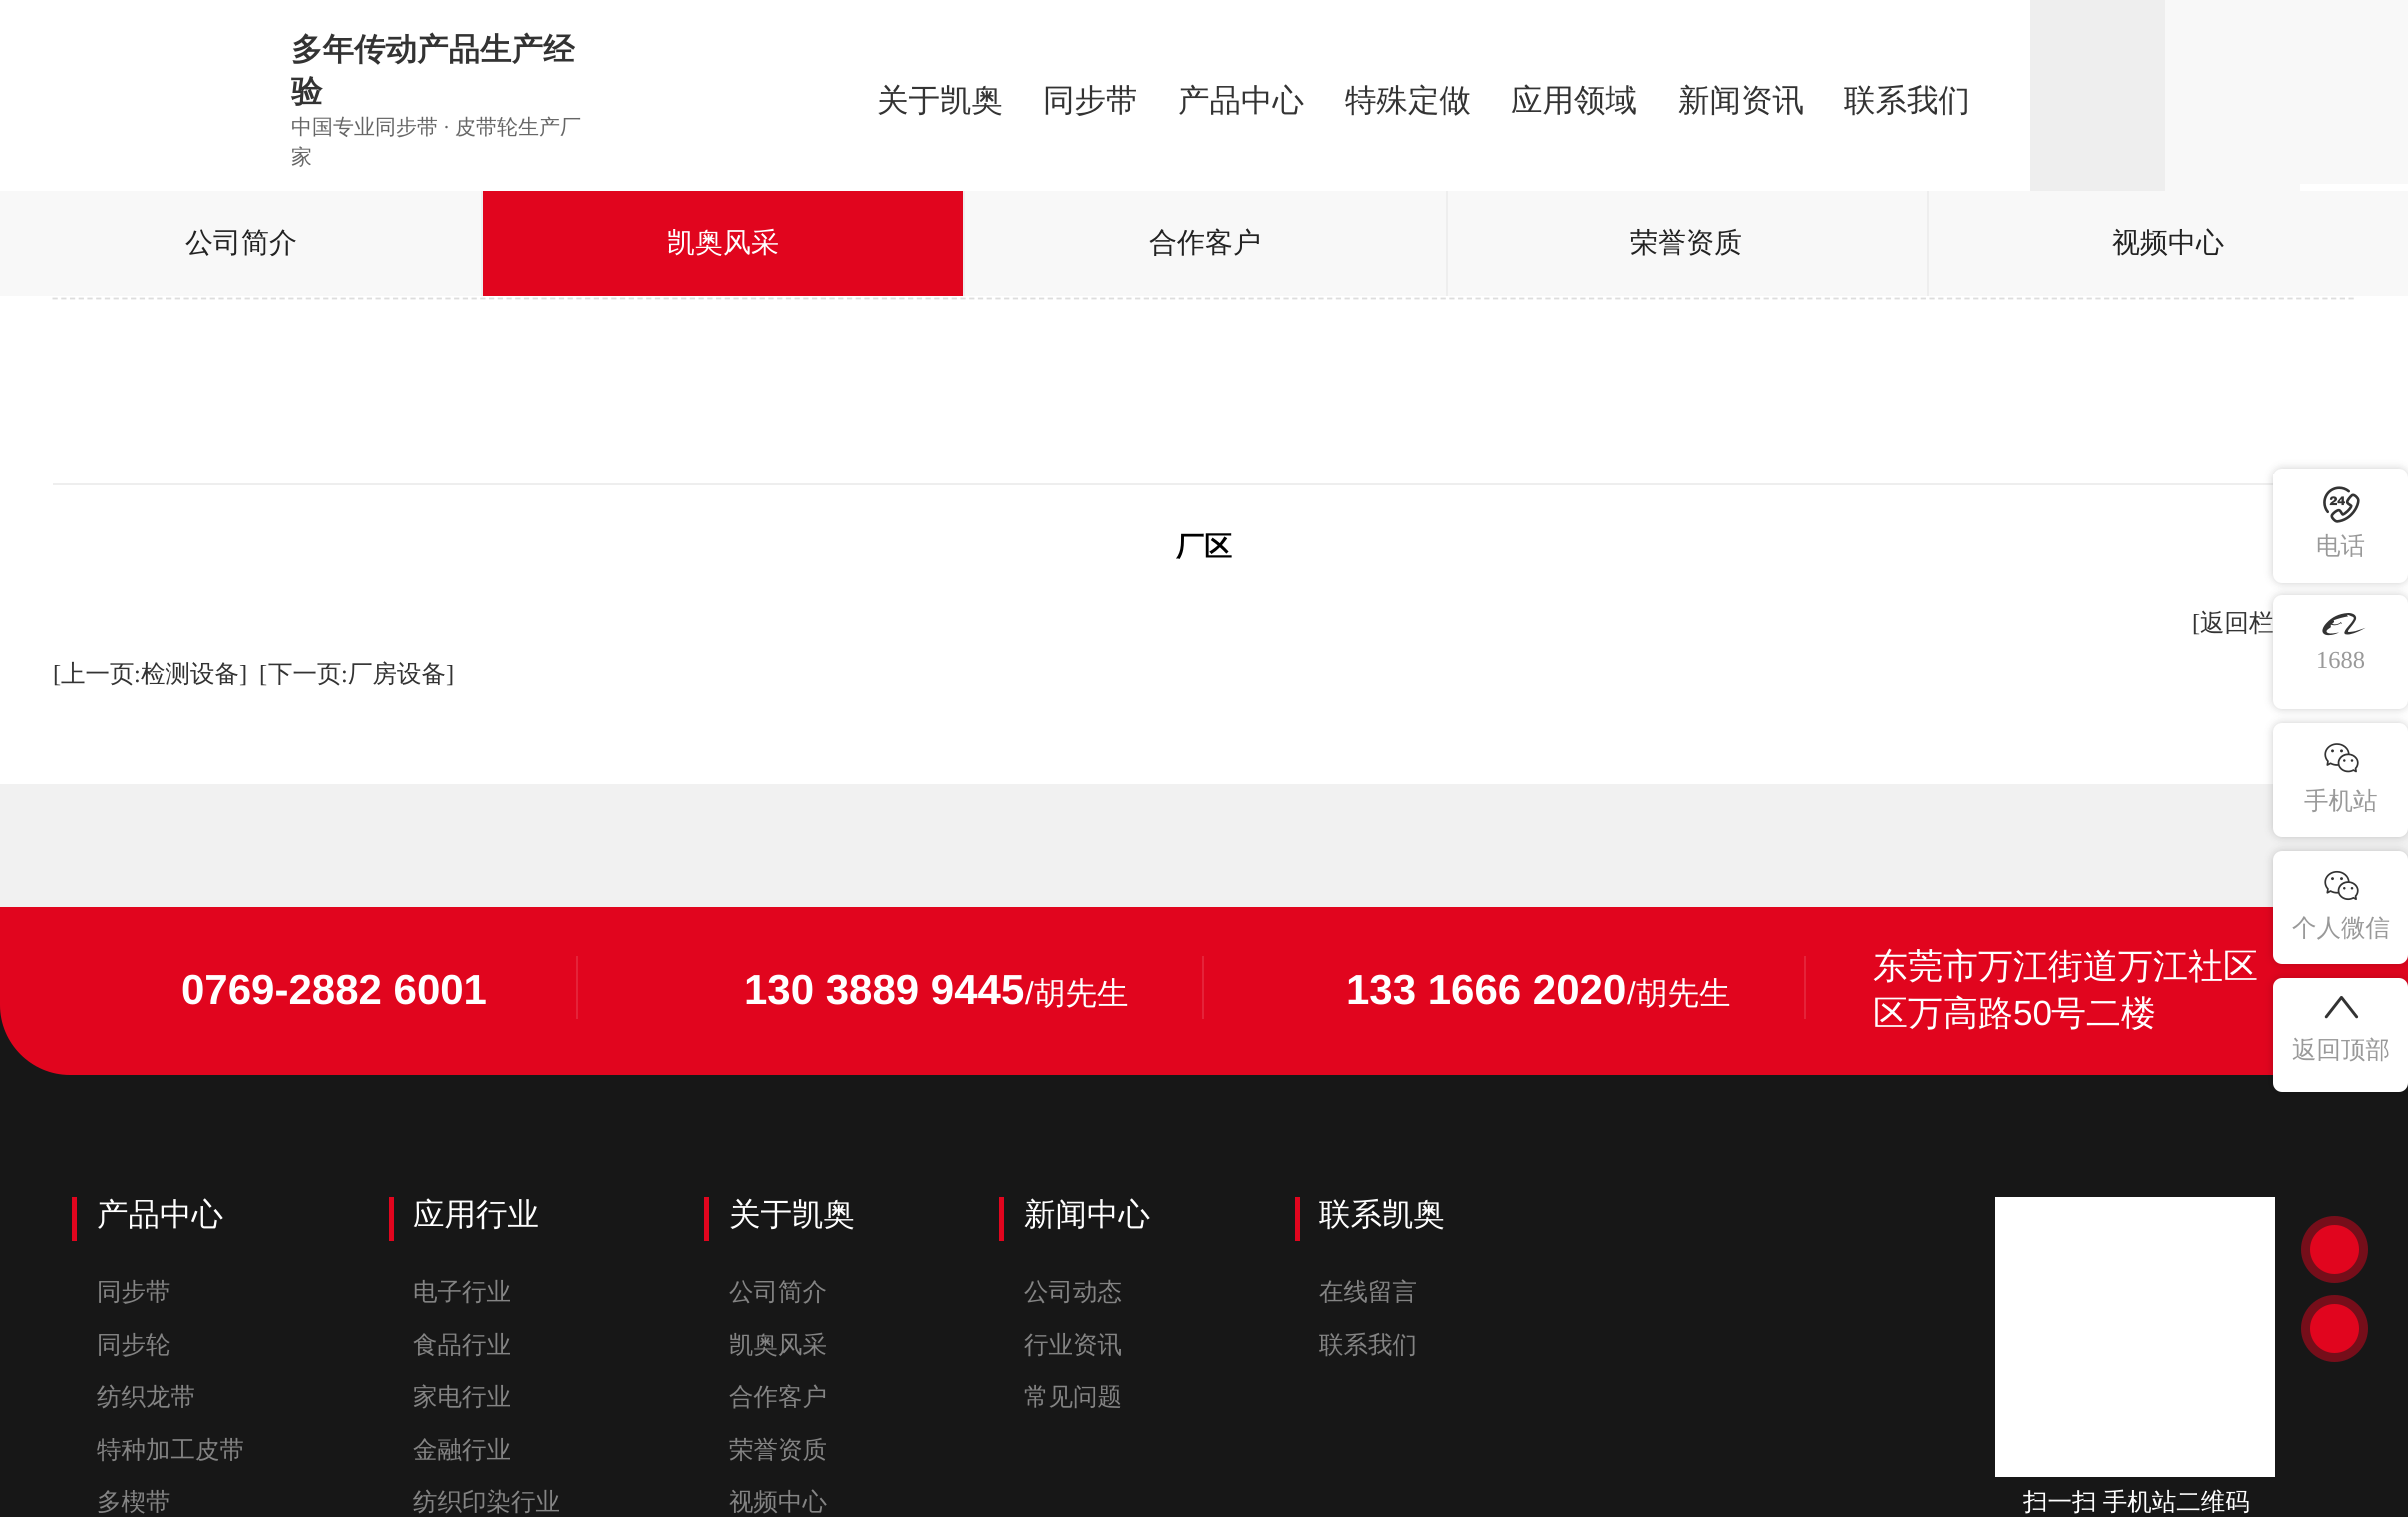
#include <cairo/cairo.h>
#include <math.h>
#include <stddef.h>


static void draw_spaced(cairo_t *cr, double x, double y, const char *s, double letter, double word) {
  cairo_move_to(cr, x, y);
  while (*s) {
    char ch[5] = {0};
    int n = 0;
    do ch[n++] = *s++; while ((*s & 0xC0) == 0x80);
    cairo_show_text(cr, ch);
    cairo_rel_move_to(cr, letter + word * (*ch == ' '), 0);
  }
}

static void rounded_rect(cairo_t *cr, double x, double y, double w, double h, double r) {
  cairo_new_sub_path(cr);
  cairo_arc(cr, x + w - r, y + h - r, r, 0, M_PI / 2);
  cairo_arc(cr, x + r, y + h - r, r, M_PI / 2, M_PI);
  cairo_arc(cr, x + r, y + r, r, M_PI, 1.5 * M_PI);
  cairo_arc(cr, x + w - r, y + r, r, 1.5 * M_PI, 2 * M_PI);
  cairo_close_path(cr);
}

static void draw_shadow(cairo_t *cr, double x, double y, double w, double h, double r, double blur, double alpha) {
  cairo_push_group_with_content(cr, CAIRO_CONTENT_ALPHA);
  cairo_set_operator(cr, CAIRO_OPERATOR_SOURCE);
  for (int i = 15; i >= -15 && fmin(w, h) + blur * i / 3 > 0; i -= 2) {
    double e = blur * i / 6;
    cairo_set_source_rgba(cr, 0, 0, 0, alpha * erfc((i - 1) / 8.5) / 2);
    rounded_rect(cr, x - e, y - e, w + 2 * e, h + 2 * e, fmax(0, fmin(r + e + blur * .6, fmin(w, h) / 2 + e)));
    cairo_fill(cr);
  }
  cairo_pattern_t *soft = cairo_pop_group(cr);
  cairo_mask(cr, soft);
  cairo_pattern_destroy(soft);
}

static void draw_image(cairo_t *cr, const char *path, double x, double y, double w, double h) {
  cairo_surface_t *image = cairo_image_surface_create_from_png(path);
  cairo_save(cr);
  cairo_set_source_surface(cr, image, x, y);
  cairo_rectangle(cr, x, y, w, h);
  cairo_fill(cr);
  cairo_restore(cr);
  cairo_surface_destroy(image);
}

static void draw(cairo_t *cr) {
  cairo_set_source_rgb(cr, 1, 1, 1);
  cairo_paint(cr);
  cairo_set_source_rgb(cr, 238 / 255.0, 238 / 255.0, 238 / 255.0);
  cairo_rectangle(cr, 2030, 0, 135, 191);
  cairo_fill(cr);
  cairo_set_source_rgb(cr, 248 / 255.0, 248 / 255.0, 248 / 255.0);
  cairo_rectangle(cr, 2165, 0, 135, 191);
  cairo_fill(cr);
  cairo_rectangle(cr, 2300, 0, 108, 184);
  cairo_fill(cr);
  cairo_rectangle(cr, 0, 191, 2408, 105);
  cairo_fill(cr);
  cairo_set_source_rgb(cr, 225 / 255.0, 5 / 255.0, 30 / 255.0);
  cairo_rectangle(cr, 483, 191, 480, 105);
  cairo_fill(cr);
  cairo_set_source_rgb(cr, 238 / 255.0, 238 / 255.0, 238 / 255.0);
  cairo_rectangle(cr, 481, 191, 2, 105);
  cairo_fill(cr);
  cairo_rectangle(cr, 963, 191, 2, 105);
  cairo_fill(cr);
  cairo_rectangle(cr, 1446, 191, 2, 105);
  cairo_fill(cr);
  cairo_rectangle(cr, 1927, 191, 2, 105);
  cairo_fill(cr);
  cairo_set_source_rgb(cr, 241 / 255.0, 241 / 255.0, 241 / 255.0);
  cairo_rectangle(cr, 0, 784, 2408, 123);
  cairo_fill(cr);
  cairo_new_path(cr);
  cairo_move_to(cr, 52.5, 298.5);
  cairo_line_to(cr, 2355.5, 298.5);
  cairo_set_source_rgb(cr, 221 / 255.0, 221 / 255.0, 221 / 255.0);
  cairo_set_line_width(cr, 1.8);
  cairo_set_dash(cr, (double[]){5.25, 3.48}, 2, 0);
  cairo_stroke(cr);
  cairo_set_source_rgb(cr, 238 / 255.0, 238 / 255.0, 238 / 255.0);
  cairo_rectangle(cr, 53, 483, 2220, 2);
  cairo_fill(cr);
  cairo_set_source_rgb(cr, 0, 0, 0);
  draw_shadow(cr, 2273, 469, 135, 114, 9, 4.5, 0.2);
  cairo_set_source_rgb(cr, 1, 1, 1);
  rounded_rect(cr, 2273, 469, 135, 114, 9);
  cairo_fill(cr);
  cairo_rectangle(cr, 2273, 474, 1, 3);
  cairo_fill(cr);
  draw_image(cr, "images/1.png", 2323, 486, 37, 37);
  cairo_set_source_rgb(cr, 0, 0, 0);
  draw_shadow(cr, 2273, 595, 135, 114, 9, 4.5, 0.2);
  cairo_set_source_rgb(cr, 23 / 255.0, 23 / 255.0, 23 / 255.0);
  cairo_rectangle(cr, 0, 1005, 2408, 512);
  cairo_fill(cr);
  cairo_set_source_rgb(cr, 225 / 255.0, 5 / 255.0, 30 / 255.0);
  cairo_new_path(cr);
  cairo_move_to(cr, 0, 907);
  cairo_line_to(cr, 2408, 907);
  cairo_line_to(cr, 2408, 1005);
  cairo_curve_to(cr, 2408, 1043.5, 2376.5, 1075, 2338, 1075);
  cairo_line_to(cr, 70, 1075);
  cairo_curve_to(cr, 31.5, 1075, 0, 1043.5, 0, 1005);
  cairo_close_path(cr);
  cairo_fill(cr);
  cairo_set_source_rgb(cr, 229 / 255.0, 35 / 255.0, 57 / 255.0);
  cairo_rectangle(cr, 576, 956, 2, 63);
  cairo_fill(cr);
  cairo_rectangle(cr, 1202, 956, 2, 63);
  cairo_fill(cr);
  cairo_rectangle(cr, 1804, 956, 2, 63);
  cairo_fill(cr);
  cairo_set_source_rgb(cr, 225 / 255.0, 5 / 255.0, 30 / 255.0);
  cairo_rectangle(cr, 72, 1197, 5, 44);
  cairo_fill(cr);
  cairo_rectangle(cr, 389, 1197, 5, 44);
  cairo_fill(cr);
  cairo_rectangle(cr, 704, 1197, 5, 44);
  cairo_fill(cr);
  cairo_rectangle(cr, 999, 1197, 5, 44);
  cairo_fill(cr);
  cairo_rectangle(cr, 1295, 1197, 5, 44);
  cairo_fill(cr);
  cairo_arc(cr, 2334.5, 1249.5, 24.5, 0, 2 * M_PI);
  cairo_fill(cr);
  cairo_set_source_rgba(cr, 225 / 255.0, 5 / 255.0, 30 / 255.0, 0.47);
  cairo_arc(cr, 2334.5, 1249.5, 33.5, 0, 2 * M_PI);
  cairo_fill(cr);
  cairo_set_source_rgb(cr, 225 / 255.0, 5 / 255.0, 30 / 255.0);
  cairo_arc(cr, 2334.5, 1328.5, 24.5, 0, 2 * M_PI);
  cairo_fill(cr);
  cairo_set_source_rgba(cr, 225 / 255.0, 5 / 255.0, 30 / 255.0, 0.47);
  cairo_arc(cr, 2334.5, 1328.5, 33.5, 0, 2 * M_PI);
  cairo_fill(cr);
  cairo_set_source_rgb(cr, 1, 1, 1);
  cairo_rectangle(cr, 1995, 1197, 280, 280);
  cairo_fill(cr);
  cairo_select_font_face(cr, "WenQuanYi Zen Hei", CAIRO_FONT_SLANT_NORMAL, CAIRO_FONT_WEIGHT_BOLD);
  cairo_set_font_size(cr, 31.5);
  cairo_set_source_rgb(cr, 51 / 255.0, 51 / 255.0, 51 / 255.0);
  cairo_move_to(cr, 291, 60);
  cairo_show_text(cr, "多年传动产品生产经");
  cairo_move_to(cr, 291, 102);
  cairo_show_text(cr, "验");
  cairo_select_font_face(cr, "WenQuanYi Zen Hei Medium", CAIRO_FONT_SLANT_NORMAL, CAIRO_FONT_WEIGHT_NORMAL);
  cairo_set_font_size(cr, 21);
  cairo_set_source_rgb(cr, 102 / 255.0, 102 / 255.0, 102 / 255.0);
  cairo_move_to(cr, 291, 134);
  cairo_show_text(cr, "中国专业同步带");
  cairo_select_font_face(cr, "Liberation Serif", CAIRO_FONT_SLANT_NORMAL, CAIRO_FONT_WEIGHT_NORMAL);
  cairo_move_to(cr, 443, 134);
  cairo_show_text(cr, "·");
  cairo_select_font_face(cr, "WenQuanYi Zen Hei Medium", CAIRO_FONT_SLANT_NORMAL, CAIRO_FONT_WEIGHT_NORMAL);
  cairo_move_to(cr, 455, 134);
  cairo_show_text(cr, "皮带轮生产厂");
  cairo_move_to(cr, 291, 164);
  cairo_show_text(cr, "家");
  cairo_set_font_size(cr, 31.5);
  cairo_set_source_rgb(cr, 51 / 255.0, 51 / 255.0, 51 / 255.0);
  cairo_move_to(cr, 877, 111);
  cairo_show_text(cr, "关于凯奥");
  cairo_move_to(cr, 1043, 111);
  cairo_show_text(cr, "同步带");
  cairo_move_to(cr, 1178, 111);
  cairo_show_text(cr, "产品中心");
  cairo_move_to(cr, 1345, 111);
  cairo_show_text(cr, "特殊定做");
  cairo_move_to(cr, 1511, 111);
  cairo_show_text(cr, "应用领域");
  cairo_move_to(cr, 1678, 111);
  cairo_show_text(cr, "新闻资讯");
  cairo_move_to(cr, 1844, 111);
  cairo_show_text(cr, "联系我们");
  cairo_set_font_size(cr, 28);
  cairo_set_source_rgb(cr, 34 / 255.0, 34 / 255.0, 34 / 255.0);
  cairo_move_to(cr, 185, 252);
  cairo_show_text(cr, "公司简介");
  cairo_set_source_rgb(cr, 1, 1, 1);
  cairo_move_to(cr, 667, 252);
  cairo_show_text(cr, "凯奥风采");
  cairo_set_source_rgb(cr, 34 / 255.0, 34 / 255.0, 34 / 255.0);
  cairo_move_to(cr, 1149, 252);
  cairo_show_text(cr, "合作客户");
  cairo_move_to(cr, 1630, 252);
  cairo_show_text(cr, "荣誉资质");
  cairo_move_to(cr, 2112, 252);
  cairo_show_text(cr, "视频中心");
  cairo_select_font_face(cr, "WenQuanYi Zen Hei", CAIRO_FONT_SLANT_NORMAL, CAIRO_FONT_WEIGHT_BOLD);
  cairo_set_source_rgb(cr, 0, 0, 0);
  cairo_move_to(cr, 1176, 556);
  cairo_show_text(cr, "厂区");
  cairo_select_font_face(cr, "Liberation Serif", CAIRO_FONT_SLANT_NORMAL, CAIRO_FONT_WEIGHT_NORMAL);
  cairo_set_font_size(cr, 24.5);
  cairo_set_source_rgb(cr, 51 / 255.0, 51 / 255.0, 51 / 255.0);
  cairo_move_to(cr, 2192, 631);
  cairo_show_text(cr, "[");
  cairo_select_font_face(cr, "WenQuanYi Zen Hei Medium", CAIRO_FONT_SLANT_NORMAL, CAIRO_FONT_WEIGHT_NORMAL);
  cairo_move_to(cr, 2200, 631);
  cairo_show_text(cr, "返回栏");
  cairo_select_font_face(cr, "Liberation Serif", CAIRO_FONT_SLANT_NORMAL, CAIRO_FONT_WEIGHT_NORMAL);
  cairo_move_to(cr, 53, 682);
  cairo_show_text(cr, "[");
  cairo_select_font_face(cr, "WenQuanYi Zen Hei Medium", CAIRO_FONT_SLANT_NORMAL, CAIRO_FONT_WEIGHT_NORMAL);
  cairo_move_to(cr, 61, 682);
  cairo_show_text(cr, "上一页");
  cairo_select_font_face(cr, "Liberation Serif", CAIRO_FONT_SLANT_NORMAL, CAIRO_FONT_WEIGHT_NORMAL);
  cairo_move_to(cr, 134, 682);
  cairo_show_text(cr, ":");
  cairo_select_font_face(cr, "WenQuanYi Zen Hei Medium", CAIRO_FONT_SLANT_NORMAL, CAIRO_FONT_WEIGHT_NORMAL);
  cairo_move_to(cr, 141, 682);
  cairo_show_text(cr, "检测设备");
  cairo_select_font_face(cr, "Liberation Serif", CAIRO_FONT_SLANT_NORMAL, CAIRO_FONT_WEIGHT_NORMAL);
  cairo_move_to(cr, 239, 682);
  cairo_show_text(cr, "]");
  cairo_move_to(cr, 259, 682);
  cairo_show_text(cr, "[");
  cairo_select_font_face(cr, "WenQuanYi Zen Hei Medium", CAIRO_FONT_SLANT_NORMAL, CAIRO_FONT_WEIGHT_NORMAL);
  cairo_move_to(cr, 268, 682);
  cairo_show_text(cr, "下一页");
  cairo_select_font_face(cr, "Liberation Serif", CAIRO_FONT_SLANT_NORMAL, CAIRO_FONT_WEIGHT_NORMAL);
  cairo_move_to(cr, 341, 682);
  cairo_show_text(cr, ":");
  cairo_select_font_face(cr, "WenQuanYi Zen Hei Medium", CAIRO_FONT_SLANT_NORMAL, CAIRO_FONT_WEIGHT_NORMAL);
  cairo_move_to(cr, 348, 682);
  cairo_show_text(cr, "厂房设备");
  cairo_select_font_face(cr, "Liberation Serif", CAIRO_FONT_SLANT_NORMAL, CAIRO_FONT_WEIGHT_NORMAL);
  cairo_move_to(cr, 446, 682);
  cairo_show_text(cr, "]");
  cairo_select_font_face(cr, "WenQuanYi Zen Hei Medium", CAIRO_FONT_SLANT_NORMAL, CAIRO_FONT_WEIGHT_NORMAL);
  cairo_set_source_rgb(cr, 153 / 255.0, 153 / 255.0, 153 / 255.0);
  cairo_move_to(cr, 2316, 554);
  cairo_show_text(cr, "电话");
  cairo_set_source_rgb(cr, 1, 1, 1);
  rounded_rect(cr, 2273, 595, 135, 114, 9);
  cairo_fill(cr);
  draw_image(cr, "images/2.png", 2322, 613, 44, 23);
  cairo_select_font_face(cr, "Liberation Serif", CAIRO_FONT_SLANT_NORMAL, CAIRO_FONT_WEIGHT_NORMAL);
  cairo_set_source_rgb(cr, 153 / 255.0, 153 / 255.0, 153 / 255.0);
  cairo_move_to(cr, 2316, 668);
  cairo_show_text(cr, "1688");
  cairo_set_source_rgb(cr, 0, 0, 0);
  draw_shadow(cr, 2273, 723, 135, 114, 9, 4.5, 0.2);
  cairo_set_source_rgb(cr, 1, 1, 1);
  rounded_rect(cr, 2273, 723, 135, 114, 9);
  cairo_fill(cr);
  draw_image(cr, "images/3.png", 2324, 743, 35, 30);
  cairo_select_font_face(cr, "WenQuanYi Zen Hei Medium", CAIRO_FONT_SLANT_NORMAL, CAIRO_FONT_WEIGHT_NORMAL);
  cairo_set_source_rgb(cr, 153 / 255.0, 153 / 255.0, 153 / 255.0);
  cairo_move_to(cr, 2304, 809);
  cairo_show_text(cr, "手机站");
  cairo_set_source_rgb(cr, 0, 0, 0);
  draw_shadow(cr, 2273, 851, 135, 113, 9, 4.5, 0.2);
  cairo_set_source_rgb(cr, 1, 1, 1);
  rounded_rect(cr, 2273, 851, 135, 113, 9);
  cairo_fill(cr);
  draw_image(cr, "images/4.png", 2324, 870, 35, 31);
  cairo_set_source_rgb(cr, 153 / 255.0, 153 / 255.0, 153 / 255.0);
  cairo_move_to(cr, 2292, 936);
  cairo_show_text(cr, "个人微信");
  cairo_set_source_rgb(cr, 0, 0, 0);
  draw_shadow(cr, 2273, 978, 135, 114, 9, 4.5, 0.2);
  cairo_set_source_rgb(cr, 1, 1, 1);
  rounded_rect(cr, 2273, 978, 135, 114, 9);
  cairo_fill(cr);
  draw_image(cr, "images/5.png", 2324, 996, 35, 23);
  cairo_set_source_rgb(cr, 153 / 255.0, 153 / 255.0, 153 / 255.0);
  cairo_move_to(cr, 2292, 1058);
  cairo_show_text(cr, "返回顶部");
  cairo_select_font_face(cr, "Liberation Sans", CAIRO_FONT_SLANT_NORMAL, CAIRO_FONT_WEIGHT_BOLD);
  cairo_set_font_size(cr, 42);
  cairo_set_source_rgb(cr, 1, 1, 1);
  cairo_move_to(cr, 181, 1004);
  cairo_show_text(cr, "0769-2882 6001");
  cairo_move_to(cr, 744, 1004);
  cairo_show_text(cr, "130 3889 9445");
  cairo_select_font_face(cr, "Liberation Sans", CAIRO_FONT_SLANT_NORMAL, CAIRO_FONT_WEIGHT_NORMAL);
  cairo_set_font_size(cr, 31.5);
  cairo_move_to(cr, 1025, 1004);
  cairo_show_text(cr, "/");
  cairo_select_font_face(cr, "WenQuanYi Zen Hei Medium", CAIRO_FONT_SLANT_NORMAL, CAIRO_FONT_WEIGHT_NORMAL);
  cairo_move_to(cr, 1034, 1004);
  cairo_show_text(cr, "胡先生");
  cairo_select_font_face(cr, "Liberation Sans", CAIRO_FONT_SLANT_NORMAL, CAIRO_FONT_WEIGHT_BOLD);
  cairo_set_font_size(cr, 42);
  cairo_move_to(cr, 1346, 1004);
  cairo_show_text(cr, "133 1666 2020");
  cairo_select_font_face(cr, "Liberation Sans", CAIRO_FONT_SLANT_NORMAL, CAIRO_FONT_WEIGHT_NORMAL);
  cairo_set_font_size(cr, 31.5);
  cairo_move_to(cr, 1627, 1004);
  cairo_show_text(cr, "/");
  cairo_select_font_face(cr, "WenQuanYi Zen Hei Medium", CAIRO_FONT_SLANT_NORMAL, CAIRO_FONT_WEIGHT_NORMAL);
  cairo_move_to(cr, 1636, 1004);
  cairo_show_text(cr, "胡先生");
  cairo_set_font_size(cr, 35);
  cairo_move_to(cr, 1873, 978);
  cairo_show_text(cr, "东莞市万江街道万江社区");
  cairo_move_to(cr, 1873, 1025);
  cairo_show_text(cr, "区万高路");
  cairo_select_font_face(cr, "Liberation Sans", CAIRO_FONT_SLANT_NORMAL, CAIRO_FONT_WEIGHT_NORMAL);
  cairo_move_to(cr, 2013, 1025);
  cairo_show_text(cr, "50");
  cairo_select_font_face(cr, "WenQuanYi Zen Hei Medium", CAIRO_FONT_SLANT_NORMAL, CAIRO_FONT_WEIGHT_NORMAL);
  cairo_move_to(cr, 2051, 1025);
  cairo_show_text(cr, "号二楼");
  cairo_set_font_size(cr, 31.5);
  cairo_move_to(cr, 97, 1225);
  cairo_show_text(cr, "产品中心");
  cairo_set_font_size(cr, 24.5);
  cairo_set_source_rgb(cr, 132 / 255.0, 132 / 255.0, 132 / 255.0);
  cairo_move_to(cr, 97, 1300);
  cairo_show_text(cr, "同步带");
  cairo_move_to(cr, 97, 1353);
  cairo_show_text(cr, "同步轮");
  cairo_move_to(cr, 97, 1405);
  cairo_show_text(cr, "纺织龙带");
  cairo_move_to(cr, 97, 1458);
  cairo_show_text(cr, "特种加工皮带");
  cairo_move_to(cr, 97, 1510);
  cairo_show_text(cr, "多楔带");
  cairo_set_font_size(cr, 31.5);
  cairo_set_source_rgb(cr, 1, 1, 1);
  cairo_move_to(cr, 413, 1225);
  cairo_show_text(cr, "应用行业");
  cairo_set_font_size(cr, 24.5);
  cairo_set_source_rgb(cr, 132 / 255.0, 132 / 255.0, 132 / 255.0);
  cairo_move_to(cr, 413, 1300);
  cairo_show_text(cr, "电子行业");
  cairo_move_to(cr, 413, 1353);
  cairo_show_text(cr, "食品行业");
  cairo_move_to(cr, 413, 1405);
  cairo_show_text(cr, "家电行业");
  cairo_move_to(cr, 413, 1458);
  cairo_show_text(cr, "金融行业");
  cairo_move_to(cr, 413, 1510);
  cairo_show_text(cr, "纺织印染行业");
  cairo_set_font_size(cr, 31.5);
  cairo_set_source_rgb(cr, 1, 1, 1);
  cairo_move_to(cr, 729, 1225);
  cairo_show_text(cr, "关于凯奥");
  cairo_set_font_size(cr, 24.5);
  cairo_set_source_rgb(cr, 132 / 255.0, 132 / 255.0, 132 / 255.0);
  cairo_move_to(cr, 729, 1300);
  cairo_show_text(cr, "公司简介");
  cairo_move_to(cr, 729, 1353);
  cairo_show_text(cr, "凯奥风采");
  cairo_move_to(cr, 729, 1405);
  cairo_show_text(cr, "合作客户");
  cairo_move_to(cr, 729, 1458);
  cairo_show_text(cr, "荣誉资质");
  cairo_move_to(cr, 729, 1510);
  cairo_show_text(cr, "视频中心");
  cairo_set_font_size(cr, 31.5);
  cairo_set_source_rgb(cr, 1, 1, 1);
  cairo_move_to(cr, 1024, 1225);
  cairo_show_text(cr, "新闻中心");
  cairo_set_font_size(cr, 24.5);
  cairo_set_source_rgb(cr, 132 / 255.0, 132 / 255.0, 132 / 255.0);
  cairo_move_to(cr, 1024, 1300);
  cairo_show_text(cr, "公司动态");
  cairo_move_to(cr, 1024, 1353);
  cairo_show_text(cr, "行业资讯");
  cairo_move_to(cr, 1024, 1405);
  cairo_show_text(cr, "常见问题");
  cairo_set_font_size(cr, 31.5);
  cairo_set_source_rgb(cr, 1, 1, 1);
  cairo_move_to(cr, 1319, 1225);
  cairo_show_text(cr, "联系凯奥");
  cairo_set_font_size(cr, 24.5);
  cairo_set_source_rgb(cr, 132 / 255.0, 132 / 255.0, 132 / 255.0);
  cairo_move_to(cr, 1319, 1300);
  cairo_show_text(cr, "在线留言");
  cairo_move_to(cr, 1319, 1353);
  cairo_show_text(cr, "联系我们");
  cairo_set_source_rgb(cr, 1, 1, 1);
  draw_spaced(cr, 2023, 1510, "扫一扫 手机站二维码", 0, -1);
}

int main(void) {
  cairo_surface_t *surface = cairo_image_surface_create(CAIRO_FORMAT_RGB24, 2408, 1517);
  cairo_t *cr = cairo_create(surface);
  cairo_font_options_t *options = cairo_font_options_create();
  cairo_font_options_set_hint_metrics(options, CAIRO_HINT_METRICS_OFF);
  cairo_font_options_set_hint_style(options, CAIRO_HINT_STYLE_NONE);
  cairo_set_font_options(cr, options);
  cairo_set_miter_limit(cr, 4);
  draw(cr);
  cairo_surface_write_to_png(surface, "out.png");
  cairo_font_options_destroy(options);
  cairo_destroy(cr);
  cairo_surface_destroy(surface);
  return 0;
}
